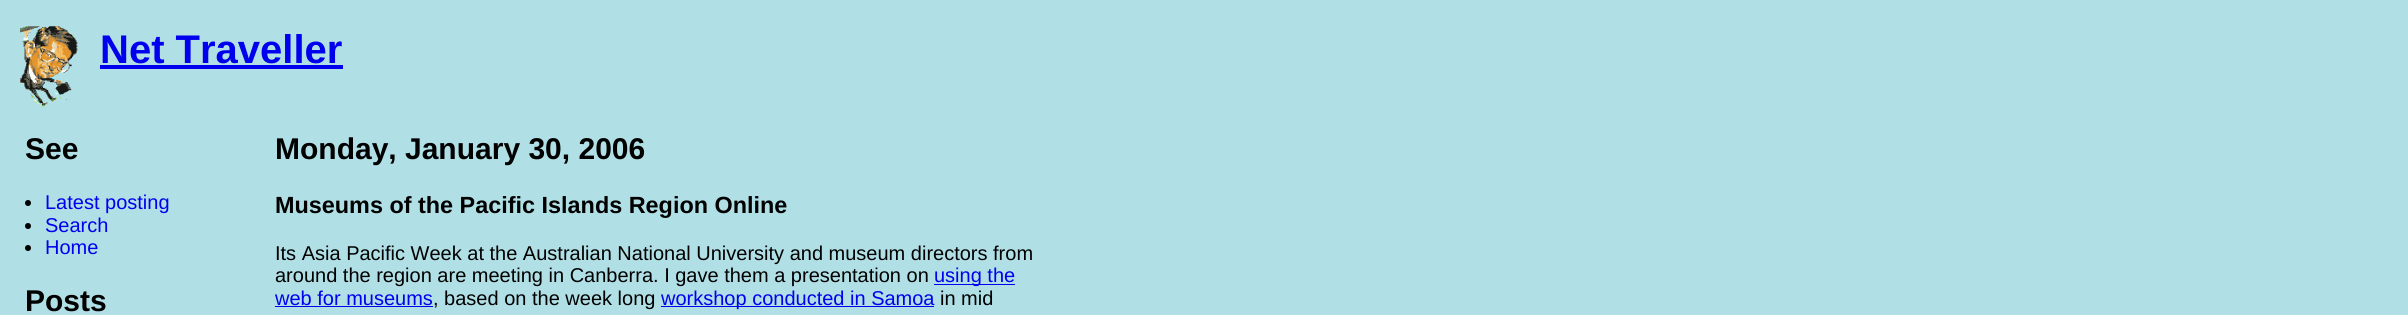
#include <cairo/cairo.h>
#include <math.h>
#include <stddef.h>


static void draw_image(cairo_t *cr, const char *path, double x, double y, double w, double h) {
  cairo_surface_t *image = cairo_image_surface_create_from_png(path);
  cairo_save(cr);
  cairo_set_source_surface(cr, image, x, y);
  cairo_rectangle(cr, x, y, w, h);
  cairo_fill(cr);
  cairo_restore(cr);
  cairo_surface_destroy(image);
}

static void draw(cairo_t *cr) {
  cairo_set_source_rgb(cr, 176 / 255.0, 224 / 255.0, 230 / 255.0);
  cairo_paint(cr);
  draw_image(cr, "images/1.png", 20, 26, 59, 81);
  cairo_set_source_rgb(cr, 0, 0, 238 / 255.0);
  cairo_rectangle(cr, 100, 65, 243, 4);
  cairo_fill(cr);
  cairo_set_source_rgb(cr, 0, 0, 0);
  cairo_arc(cr, 28, 203, 3, 0, 2 * M_PI);
  cairo_fill(cr);
  cairo_arc(cr, 28, 226, 3, 0, 2 * M_PI);
  cairo_fill(cr);
  cairo_arc(cr, 28, 248, 3, 0, 2 * M_PI);
  cairo_fill(cr);
  cairo_set_source_rgb(cr, 0, 0, 238 / 255.0);
  cairo_rectangle(cr, 934, 284, 81, 1);
  cairo_fill(cr);
  cairo_rectangle(cr, 275, 306, 158, 1);
  cairo_fill(cr);
  cairo_rectangle(cr, 661, 306, 273, 1);
  cairo_fill(cr);
  cairo_select_font_face(cr, "Liberation Sans", CAIRO_FONT_SLANT_NORMAL, CAIRO_FONT_WEIGHT_BOLD);
  cairo_set_font_size(cr, 40);
  cairo_move_to(cr, 100, 63);
  cairo_show_text(cr, "Net Traveller");
  cairo_set_font_size(cr, 30);
  cairo_set_source_rgb(cr, 0, 0, 0);
  cairo_move_to(cr, 25, 159);
  cairo_show_text(cr, "See");
  cairo_select_font_face(cr, "Liberation Sans", CAIRO_FONT_SLANT_NORMAL, CAIRO_FONT_WEIGHT_NORMAL);
  cairo_set_font_size(cr, 20);
  cairo_set_source_rgb(cr, 0, 0, 238 / 255.0);
  cairo_move_to(cr, 45, 209);
  cairo_show_text(cr, "Latest posting");
  cairo_move_to(cr, 45, 232);
  cairo_show_text(cr, "Search");
  cairo_move_to(cr, 45, 254);
  cairo_show_text(cr, "Home");
  cairo_select_font_face(cr, "Liberation Sans", CAIRO_FONT_SLANT_NORMAL, CAIRO_FONT_WEIGHT_BOLD);
  cairo_set_font_size(cr, 30);
  cairo_set_source_rgb(cr, 0, 0, 0);
  cairo_move_to(cr, 25, 311);
  cairo_show_text(cr, "Posts");
  cairo_move_to(cr, 275, 159);
  cairo_show_text(cr, "Monday, January 30, 2006");
  cairo_set_font_size(cr, 23.4);
  cairo_move_to(cr, 275, 213);
  cairo_show_text(cr, "Museums of the Pacific Islands Region Online");
  cairo_select_font_face(cr, "Liberation Sans", CAIRO_FONT_SLANT_NORMAL, CAIRO_FONT_WEIGHT_NORMAL);
  cairo_set_font_size(cr, 20);
  cairo_move_to(cr, 275, 260);
  cairo_show_text(cr, "Its Asia Pacific Week at the Australian National University and museum directors from");
  cairo_move_to(cr, 275, 282);
  cairo_show_text(cr, "around the region are meeting in Canberra. I gave them a presentation on");
  cairo_set_source_rgb(cr, 0, 0, 238 / 255.0);
  cairo_move_to(cr, 934, 282);
  cairo_show_text(cr, "using the");
  cairo_move_to(cr, 275, 305);
  cairo_show_text(cr, "web for museums");
  cairo_set_source_rgb(cr, 0, 0, 0);
  cairo_move_to(cr, 433, 305);
  cairo_show_text(cr, ", based on the week long");
  cairo_set_source_rgb(cr, 0, 0, 238 / 255.0);
  cairo_move_to(cr, 661, 305);
  cairo_show_text(cr, "workshop conducted in Samoa");
  cairo_set_source_rgb(cr, 0, 0, 0);
  cairo_move_to(cr, 940, 305);
  cairo_show_text(cr, "in mid");
}

int main(void) {
  cairo_surface_t *surface = cairo_image_surface_create(CAIRO_FORMAT_RGB24, 2408, 315);
  cairo_t *cr = cairo_create(surface);
  cairo_font_options_t *options = cairo_font_options_create();
  cairo_font_options_set_hint_metrics(options, CAIRO_HINT_METRICS_OFF);
  cairo_font_options_set_hint_style(options, CAIRO_HINT_STYLE_NONE);
  cairo_set_font_options(cr, options);
  cairo_set_miter_limit(cr, 4);
  draw(cr);
  cairo_surface_write_to_png(surface, "out.png");
  cairo_font_options_destroy(options);
  cairo_destroy(cr);
  cairo_surface_destroy(surface);
  return 0;
}
